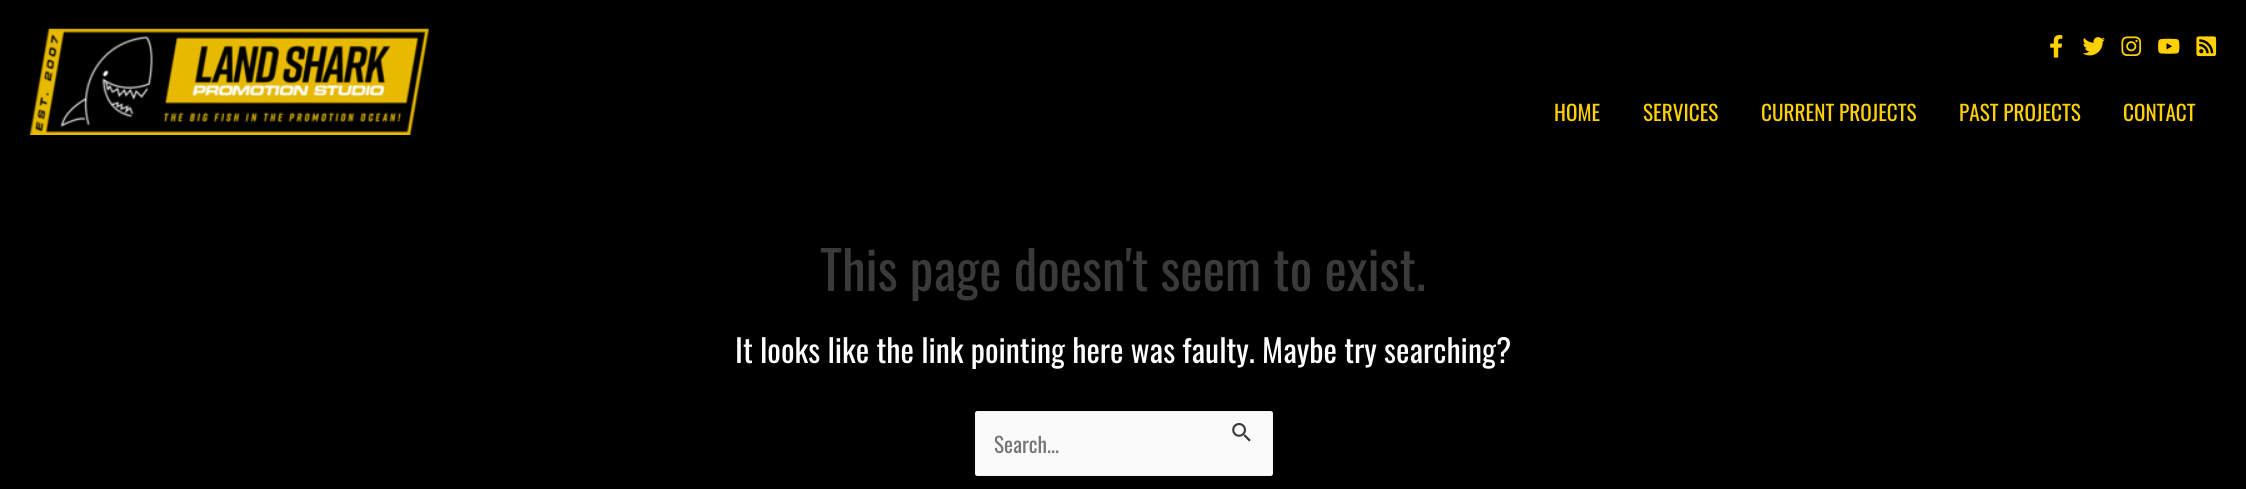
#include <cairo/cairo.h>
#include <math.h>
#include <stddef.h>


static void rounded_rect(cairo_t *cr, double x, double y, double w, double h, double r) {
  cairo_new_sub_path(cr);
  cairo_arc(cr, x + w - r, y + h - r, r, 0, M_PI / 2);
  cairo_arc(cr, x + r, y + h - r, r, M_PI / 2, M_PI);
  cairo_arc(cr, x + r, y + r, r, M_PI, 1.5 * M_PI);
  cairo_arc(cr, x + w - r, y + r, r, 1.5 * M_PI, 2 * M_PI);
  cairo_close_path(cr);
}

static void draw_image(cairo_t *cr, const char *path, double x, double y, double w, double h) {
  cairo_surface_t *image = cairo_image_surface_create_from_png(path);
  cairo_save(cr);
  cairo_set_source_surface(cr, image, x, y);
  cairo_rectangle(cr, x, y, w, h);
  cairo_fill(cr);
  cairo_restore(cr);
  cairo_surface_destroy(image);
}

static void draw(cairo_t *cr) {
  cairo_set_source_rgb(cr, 0, 0, 0);
  cairo_paint(cr);
  draw_image(cr, "images/1.png", 2050, 35, 13, 23);
  draw_image(cr, "images/2.png", 2083, 37, 22, 19);
  draw_image(cr, "images/3.png", 2121, 36, 21, 20);
  draw_image(cr, "images/4.png", 2158, 38, 22, 16);
  draw_image(cr, "images/5.png", 2196, 36, 21, 21);
  draw_image(cr, "images/6.png", 30, 28, 399, 107);
  cairo_set_source_rgb(cr, 250 / 255.0, 250 / 255.0, 250 / 255.0);
  rounded_rect(cr, 975.5, 411.5, 297, 64, 2);
  cairo_fill_preserve(cr);
  cairo_set_source_rgb(cr, 242 / 255.0, 245 / 255.0, 247 / 255.0);
  cairo_set_line_width(cr, 1);
  cairo_stroke(cr);
  draw_image(cr, "images/7.png", 1232, 423, 19, 19);
  cairo_select_font_face(cr, "Oswald", CAIRO_FONT_SLANT_NORMAL, CAIRO_FONT_WEIGHT_NORMAL);
  cairo_set_font_size(cr, 21.25);
  cairo_set_source_rgb(cr, 1, 209 / 255.0, 0);
  cairo_move_to(cr, 1554, 121);
  cairo_show_text(cr, "HOME");
  cairo_move_to(cr, 1643, 121);
  cairo_show_text(cr, "SERVICES");
  cairo_move_to(cr, 1761, 121);
  cairo_show_text(cr, "CURRENT PROJECTS");
  cairo_move_to(cr, 1959, 121);
  cairo_show_text(cr, "PAST PROJECTS");
  cairo_move_to(cr, 2123, 121);
  cairo_show_text(cr, "CONTACT");
  cairo_set_font_size(cr, 53.1);
  cairo_set_source_rgb(cr, 58 / 255.0, 58 / 255.0, 58 / 255.0);
  cairo_move_to(cr, 820, 291);
  cairo_show_text(cr, "This page doesn't seem to exist.");
  cairo_set_font_size(cr, 31.9);
  cairo_set_source_rgb(cr, 1, 1, 1);
  cairo_move_to(cr, 735, 363);
  cairo_show_text(cr, "It looks like the link pointing here was faulty. Maybe try searching?");
  cairo_set_font_size(cr, 21.25);
  cairo_set_source_rgb(cr, 117 / 255.0, 117 / 255.0, 117 / 255.0);
  cairo_move_to(cr, 994, 453);
  cairo_show_text(cr, "Search...");
}

int main(void) {
  cairo_surface_t *surface = cairo_image_surface_create(CAIRO_FORMAT_RGB24, 2246, 489);
  cairo_t *cr = cairo_create(surface);
  cairo_font_options_t *options = cairo_font_options_create();
  cairo_font_options_set_hint_metrics(options, CAIRO_HINT_METRICS_OFF);
  cairo_font_options_set_hint_style(options, CAIRO_HINT_STYLE_NONE);
  cairo_set_font_options(cr, options);
  cairo_set_miter_limit(cr, 4);
  draw(cr);
  cairo_surface_write_to_png(surface, "out.png");
  cairo_font_options_destroy(options);
  cairo_destroy(cr);
  cairo_surface_destroy(surface);
  return 0;
}
